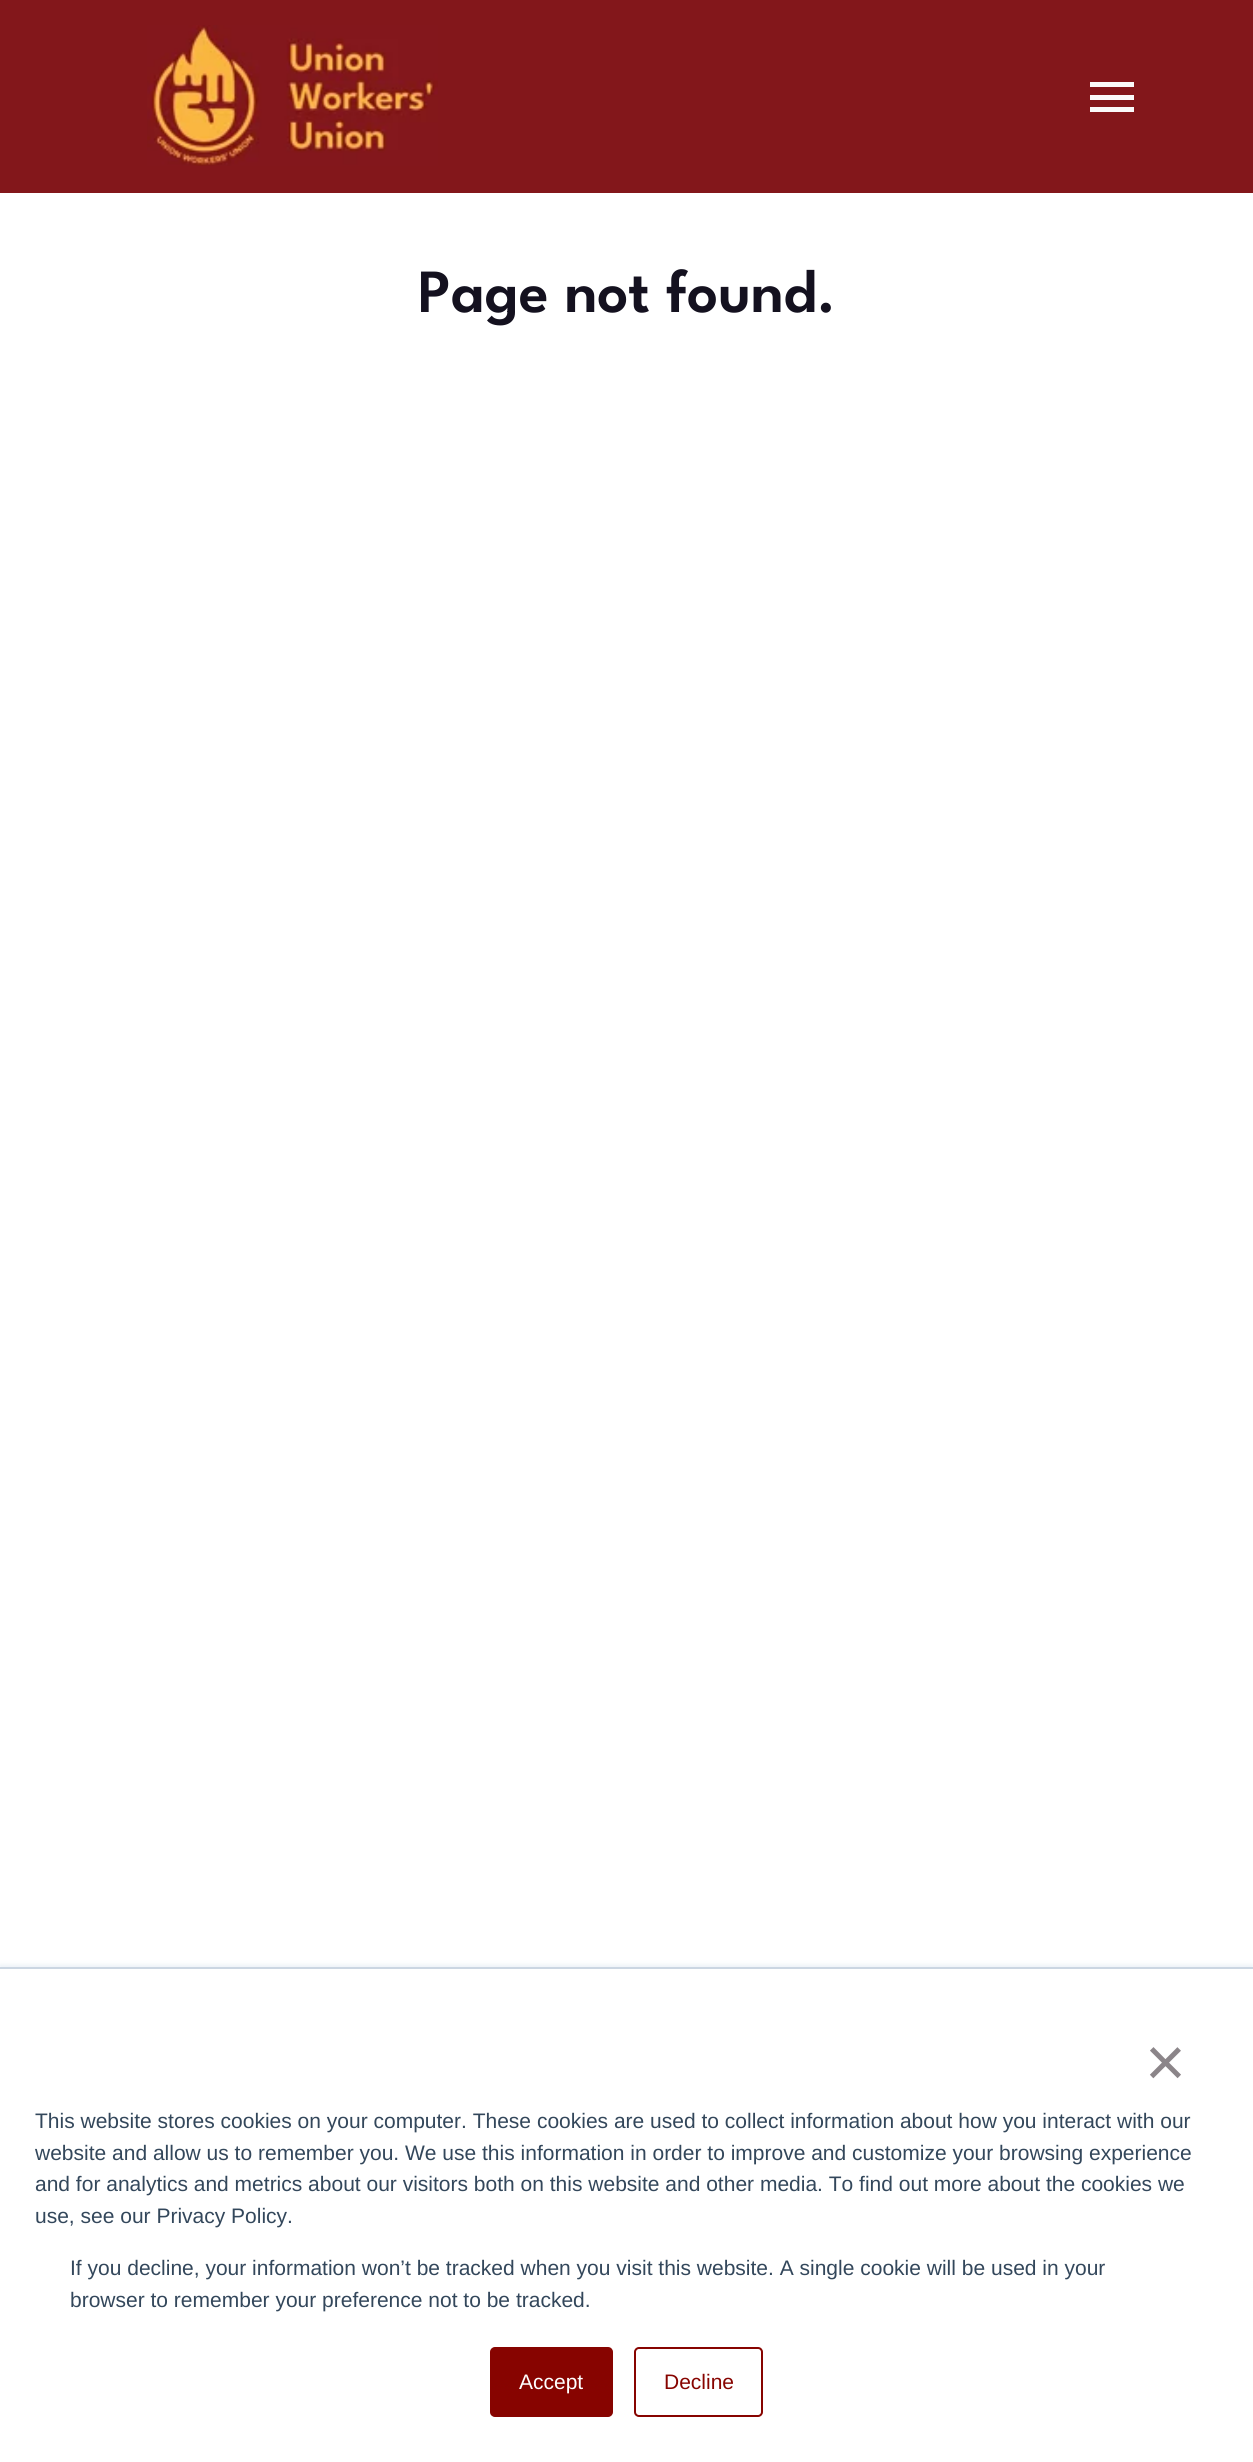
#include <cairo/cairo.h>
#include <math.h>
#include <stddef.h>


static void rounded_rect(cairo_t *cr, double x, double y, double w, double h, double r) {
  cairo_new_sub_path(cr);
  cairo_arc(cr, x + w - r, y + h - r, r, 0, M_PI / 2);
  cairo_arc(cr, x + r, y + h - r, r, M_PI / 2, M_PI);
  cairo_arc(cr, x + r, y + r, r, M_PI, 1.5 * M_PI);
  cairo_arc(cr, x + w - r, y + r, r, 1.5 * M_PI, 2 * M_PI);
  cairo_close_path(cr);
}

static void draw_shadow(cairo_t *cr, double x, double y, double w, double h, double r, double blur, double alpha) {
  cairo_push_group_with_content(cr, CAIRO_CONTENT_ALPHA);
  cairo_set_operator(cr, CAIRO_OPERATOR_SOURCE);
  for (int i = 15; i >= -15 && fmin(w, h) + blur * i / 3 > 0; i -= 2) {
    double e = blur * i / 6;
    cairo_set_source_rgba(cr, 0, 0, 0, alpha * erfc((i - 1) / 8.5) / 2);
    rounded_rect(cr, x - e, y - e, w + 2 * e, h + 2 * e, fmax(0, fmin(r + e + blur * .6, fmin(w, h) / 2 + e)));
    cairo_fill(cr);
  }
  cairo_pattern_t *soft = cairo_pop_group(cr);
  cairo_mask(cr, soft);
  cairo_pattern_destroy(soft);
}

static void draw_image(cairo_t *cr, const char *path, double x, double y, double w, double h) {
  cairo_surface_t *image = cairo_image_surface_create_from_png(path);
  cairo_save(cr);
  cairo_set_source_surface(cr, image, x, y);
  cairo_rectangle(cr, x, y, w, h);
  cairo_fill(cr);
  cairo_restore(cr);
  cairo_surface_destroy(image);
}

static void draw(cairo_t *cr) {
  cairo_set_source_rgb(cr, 1, 1, 1);
  cairo_paint(cr);
  cairo_set_source_rgb(cr, 131 / 255.0, 23 / 255.0, 27 / 255.0);
  cairo_rectangle(cr, 0, 0, 1253, 193);
  cairo_fill(cr);
  draw_image(cr, "images/1.png", 147, 25, 291, 141);
  cairo_set_source_rgb(cr, 250 / 255.0, 250 / 255.0, 250 / 255.0);
  cairo_rectangle(cr, 1090, 82, 44, 5);
  cairo_fill(cr);
  cairo_rectangle(cr, 1090, 107, 44, 5);
  cairo_fill(cr);
  cairo_rectangle(cr, 1090, 95, 44, 5);
  cairo_fill(cr);
  cairo_set_source_rgb(cr, 234 / 255.0, 240 / 255.0, 246 / 255.0);
  draw_shadow(cr, 0, 1965, 1253, 496, 0, 2.5, 1);
  cairo_set_source_rgb(cr, 1, 1, 1);
  cairo_rectangle(cr, 0, 1969, 1253, 493);
  cairo_fill(cr);
  cairo_set_source_rgb(cr, 203 / 255.0, 214 / 255.0, 226 / 255.0);
  cairo_rectangle(cr, 0, 1967, 1253, 2);
  cairo_fill(cr);
  cairo_set_source_rgb(cr, 135 / 255.0, 4 / 255.0, 0);
  rounded_rect(cr, 491, 2348, 121, 68, 4);
  cairo_fill_preserve(cr);
  cairo_stroke(cr);
  rounded_rect(cr, 635, 2348, 127, 68, 4);
  cairo_stroke(cr);
  cairo_select_font_face(cr, "League Spartan SemiBold", CAIRO_FONT_SLANT_NORMAL, CAIRO_FONT_WEIGHT_NORMAL);
  cairo_set_font_size(cr, 61.25);
  cairo_set_source_rgb(cr, 20 / 255.0, 17 / 255.0, 31 / 255.0);
  cairo_move_to(cr, 418, 312);
  cairo_show_text(cr, "Page not found.");
  cairo_select_font_face(cr, "Liberation Sans", CAIRO_FONT_SLANT_NORMAL, CAIRO_FONT_WEIGHT_NORMAL);
  cairo_set_font_size(cr, 70);
  cairo_set_source_rgb(cr, 139 / 255.0, 133 / 255.0, 137 / 255.0);
  cairo_move_to(cr, 1145, 2086);
  cairo_show_text(cr, "×");
  cairo_set_font_size(cr, 21);
  cairo_set_source_rgb(cr, 51 / 255.0, 71 / 255.0, 91 / 255.0);
  cairo_move_to(cr, 35, 2128);
  cairo_show_text(cr, "This website stores cookies on your computer. These cookies are used to collect information about how you interact with our");
  cairo_move_to(cr, 35, 2160);
  cairo_show_text(cr, "website and allow us to remember you. We use this information in order to improve and customize your browsing experience");
  cairo_move_to(cr, 35, 2191);
  cairo_show_text(cr, "and for analytics and metrics about our visitors both on this website and other media. To find out more about the cookies we");
  cairo_move_to(cr, 35, 2223);
  cairo_show_text(cr, "use, see our Privacy Policy.");
  cairo_move_to(cr, 70, 2275);
  cairo_show_text(cr, "If you decline, your information won’t be tracked when you visit this website. A single cookie will be used in your");
  cairo_move_to(cr, 70, 2307);
  cairo_show_text(cr, "browser to remember your preference not to be tracked.");
  cairo_set_source_rgb(cr, 1, 1, 1);
  cairo_move_to(cr, 519, 2389);
  cairo_show_text(cr, "Accept");
  cairo_set_source_rgb(cr, 135 / 255.0, 4 / 255.0, 0);
  cairo_move_to(cr, 664, 2389);
  cairo_show_text(cr, "Decline");
}

int main(void) {
  cairo_surface_t *surface = cairo_image_surface_create(CAIRO_FORMAT_RGB24, 1253, 2462);
  cairo_t *cr = cairo_create(surface);
  cairo_font_options_t *options = cairo_font_options_create();
  cairo_font_options_set_hint_metrics(options, CAIRO_HINT_METRICS_OFF);
  cairo_font_options_set_hint_style(options, CAIRO_HINT_STYLE_NONE);
  cairo_set_font_options(cr, options);
  cairo_set_miter_limit(cr, 4);
  draw(cr);
  cairo_surface_write_to_png(surface, "out.png");
  cairo_font_options_destroy(options);
  cairo_destroy(cr);
  cairo_surface_destroy(surface);
  return 0;
}
